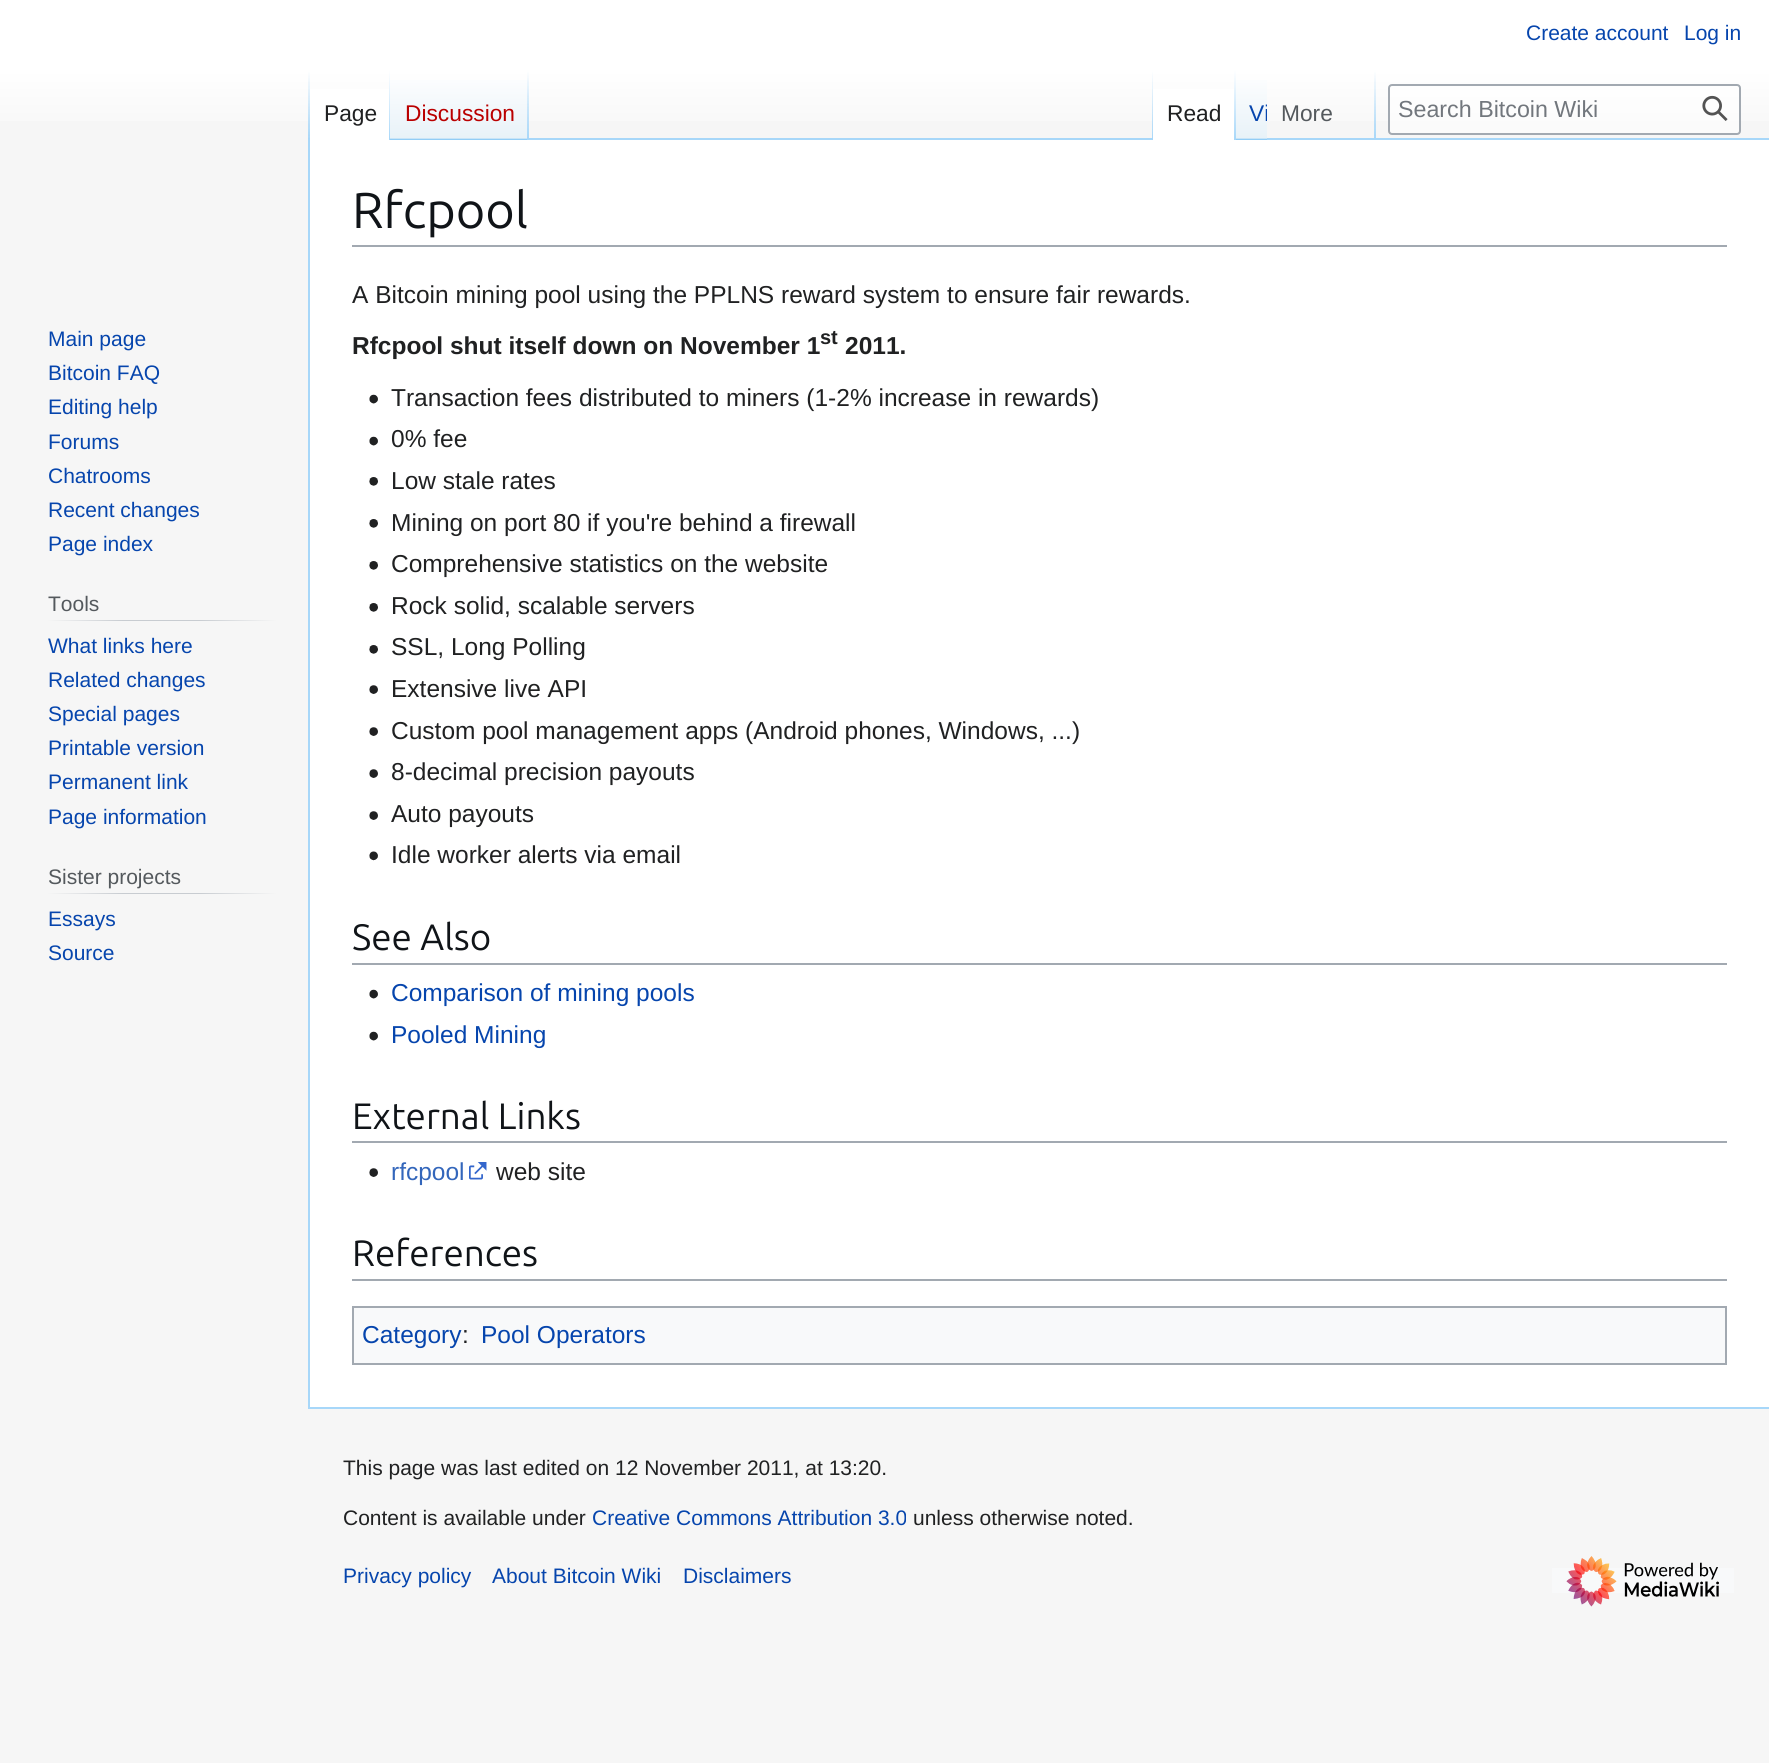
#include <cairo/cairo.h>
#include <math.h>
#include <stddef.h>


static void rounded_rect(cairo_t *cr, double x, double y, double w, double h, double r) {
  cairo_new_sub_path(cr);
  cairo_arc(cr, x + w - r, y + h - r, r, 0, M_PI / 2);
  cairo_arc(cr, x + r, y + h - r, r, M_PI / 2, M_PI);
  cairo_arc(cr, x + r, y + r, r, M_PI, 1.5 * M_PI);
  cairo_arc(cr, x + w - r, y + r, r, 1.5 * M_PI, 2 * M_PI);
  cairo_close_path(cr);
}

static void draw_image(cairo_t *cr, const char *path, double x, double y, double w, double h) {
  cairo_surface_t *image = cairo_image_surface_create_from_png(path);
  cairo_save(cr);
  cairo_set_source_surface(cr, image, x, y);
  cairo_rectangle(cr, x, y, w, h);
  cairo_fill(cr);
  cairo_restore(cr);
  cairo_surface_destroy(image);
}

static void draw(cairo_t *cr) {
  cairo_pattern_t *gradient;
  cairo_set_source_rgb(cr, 246 / 255.0, 246 / 255.0, 246 / 255.0);
  cairo_paint(cr);
  gradient = cairo_pattern_create_linear(885, 0, 885, 140);
  cairo_pattern_add_color_stop_rgba(gradient, 0.5, 1, 1, 1, 1);
  cairo_pattern_add_color_stop_rgba(gradient, 1, 246 / 255.0, 246 / 255.0, 246 / 255.0, 1);
  cairo_set_source(cr, gradient);
  cairo_pattern_destroy(gradient);
  cairo_rectangle(cr, 0, 0, 1769, 121);
  cairo_fill(cr);
  cairo_set_source_rgb(cr, 167 / 255.0, 215 / 255.0, 249 / 255.0);
  cairo_rectangle(cr, 308, 1407, 1461, 2);
  cairo_fill(cr);
  cairo_rectangle(cr, 308, 138, 2, 1271);
  cairo_fill(cr);
  gradient = cairo_pattern_create_linear(309, 70, 309, 140);
  cairo_pattern_add_color_stop_rgba(gradient, 0, 167 / 255.0, 215 / 255.0, 249 / 255.0, 0);
  cairo_pattern_add_color_stop_rgba(gradient, 1, 167 / 255.0, 215 / 255.0, 249 / 255.0, 1);
  cairo_set_source(cr, gradient);
  cairo_pattern_destroy(gradient);
  cairo_rectangle(cr, 308, 70, 2, 70);
  cairo_fill(cr);
  cairo_set_source_rgb(cr, 1, 1, 1);
  cairo_rectangle(cr, 310, 89, 79, 51);
  cairo_fill(cr);
  gradient = cairo_pattern_create_linear(389, 70, 389, 140);
  cairo_pattern_add_color_stop_rgba(gradient, 0, 1, 1, 1, 1);
  cairo_pattern_add_color_stop_rgba(gradient, 1, 167 / 255.0, 215 / 255.0, 249 / 255.0, 1);
  cairo_set_source(cr, gradient);
  cairo_pattern_destroy(gradient);
  cairo_rectangle(cr, 389, 70, 1, 70);
  cairo_fill(cr);
  gradient = cairo_pattern_create_linear(459, 140, 459, 70);
  cairo_pattern_add_color_stop_rgba(gradient, 0, 119 / 255.0, 193 / 255.0, 246 / 255.0, 1);
  cairo_pattern_add_color_stop_rgba(gradient, 0.03, 232 / 255.0, 242 / 255.0, 248 / 255.0, 1);
  cairo_pattern_add_color_stop_rgba(gradient, 1, 1, 1, 1, 1);
  cairo_set_source(cr, gradient);
  cairo_pattern_destroy(gradient);
  cairo_rectangle(cr, 390, 80, 139, 60);
  cairo_fill(cr);
  gradient = cairo_pattern_create_linear(528, 70, 528, 140);
  cairo_pattern_add_color_stop_rgba(gradient, 0, 167 / 255.0, 215 / 255.0, 249 / 255.0, 0);
  cairo_pattern_add_color_stop_rgba(gradient, 1, 167 / 255.0, 215 / 255.0, 249 / 255.0, 1);
  cairo_set_source(cr, gradient);
  cairo_pattern_destroy(gradient);
  cairo_rectangle(cr, 527, 70, 2, 70);
  cairo_fill(cr);
  cairo_set_source_rgb(cr, 167 / 255.0, 215 / 255.0, 249 / 255.0);
  cairo_rectangle(cr, 529, 138, 1240, 2);
  cairo_fill(cr);
  gradient = cairo_pattern_create_linear(1152, 70, 1152, 140);
  cairo_pattern_add_color_stop_rgba(gradient, 0, 167 / 255.0, 215 / 255.0, 249 / 255.0, 0);
  cairo_pattern_add_color_stop_rgba(gradient, 1, 167 / 255.0, 215 / 255.0, 249 / 255.0, 1);
  cairo_set_source(cr, gradient);
  cairo_pattern_destroy(gradient);
  cairo_rectangle(cr, 1152, 70, 1, 70);
  cairo_fill(cr);
  cairo_set_source_rgb(cr, 1, 1, 1);
  cairo_rectangle(cr, 1153, 89, 81, 51);
  cairo_fill(cr);
  gradient = cairo_pattern_create_linear(1235, 70, 1235, 140);
  cairo_pattern_add_color_stop_rgba(gradient, 0, 1, 1, 1, 1);
  cairo_pattern_add_color_stop_rgba(gradient, 1, 167 / 255.0, 215 / 255.0, 249 / 255.0, 1);
  cairo_set_source(cr, gradient);
  cairo_pattern_destroy(gradient);
  cairo_rectangle(cr, 1234, 70, 2, 70);
  cairo_fill(cr);
  gradient = cairo_pattern_create_linear(1251, 140, 1251, 70);
  cairo_pattern_add_color_stop_rgba(gradient, 0, 119 / 255.0, 193 / 255.0, 246 / 255.0, 1);
  cairo_pattern_add_color_stop_rgba(gradient, 0.03, 232 / 255.0, 242 / 255.0, 248 / 255.0, 1);
  cairo_pattern_add_color_stop_rgba(gradient, 1, 1, 1, 1, 1);
  cairo_set_source(cr, gradient);
  cairo_pattern_destroy(gradient);
  cairo_rectangle(cr, 1236, 80, 31, 60);
  cairo_fill(cr);
  gradient = cairo_pattern_create_linear(1375, 70, 1375, 140);
  cairo_pattern_add_color_stop_rgba(gradient, 0, 167 / 255.0, 215 / 255.0, 249 / 255.0, 0);
  cairo_pattern_add_color_stop_rgba(gradient, 1, 167 / 255.0, 215 / 255.0, 249 / 255.0, 1);
  cairo_set_source(cr, gradient);
  cairo_pattern_destroy(gradient);
  cairo_rectangle(cr, 1374, 70, 2, 70);
  cairo_fill(cr);
  cairo_set_source_rgba(cr, 1, 1, 1, 0.5);
  rounded_rect(cr, 1389, 85, 351, 49, 3);
  cairo_fill_preserve(cr);
  cairo_set_source_rgb(cr, 162 / 255.0, 169 / 255.0, 177 / 255.0);
  cairo_stroke(cr);
  draw_image(cr, "images/1.png", 1702, 95, 26, 26);
  gradient = cairo_pattern_create_linear(47, 620, 277, 620);
  cairo_pattern_add_color_stop_rgba(gradient, 0, 246 / 255.0, 246 / 255.0, 246 / 255.0, 1);
  cairo_pattern_add_color_stop_rgba(gradient, 0.33, 200 / 255.0, 204 / 255.0, 209 / 255.0, 1);
  cairo_pattern_add_color_stop_rgba(gradient, 0.66, 200 / 255.0, 204 / 255.0, 209 / 255.0, 1);
  cairo_pattern_add_color_stop_rgba(gradient, 1, 246 / 255.0, 246 / 255.0, 246 / 255.0, 1);
  cairo_set_source(cr, gradient);
  cairo_pattern_destroy(gradient);
  cairo_rectangle(cr, 47, 620, 230, 1);
  cairo_fill(cr);
  gradient = cairo_pattern_create_linear(47, 893, 277, 893);
  cairo_pattern_add_color_stop_rgba(gradient, 0, 246 / 255.0, 246 / 255.0, 246 / 255.0, 1);
  cairo_pattern_add_color_stop_rgba(gradient, 0.33, 200 / 255.0, 204 / 255.0, 209 / 255.0, 1);
  cairo_pattern_add_color_stop_rgba(gradient, 0.66, 200 / 255.0, 204 / 255.0, 209 / 255.0, 1);
  cairo_pattern_add_color_stop_rgba(gradient, 1, 246 / 255.0, 246 / 255.0, 246 / 255.0, 1);
  cairo_set_source(cr, gradient);
  cairo_pattern_destroy(gradient);
  cairo_rectangle(cr, 47, 893, 230, 1);
  cairo_fill(cr);
  cairo_set_source_rgb(cr, 1, 1, 1);
  cairo_rectangle(cr, 310, 140, 1459, 1267);
  cairo_fill(cr);
  cairo_set_source_rgb(cr, 162 / 255.0, 169 / 255.0, 177 / 255.0);
  cairo_rectangle(cr, 352, 245, 1375, 2);
  cairo_fill(cr);
  draw_image(cr, "images/2.png", 369, 394, 9, 10);
  draw_image(cr, "images/2.png", 369, 436, 9, 10);
  draw_image(cr, "images/3.png", 369, 477, 9, 9);
  draw_image(cr, "images/3.png", 369, 519, 9, 9);
  draw_image(cr, "images/3.png", 369, 561, 9, 9);
  draw_image(cr, "images/3.png", 369, 603, 9, 9);
  draw_image(cr, "images/3.png", 369, 645, 9, 9);
  draw_image(cr, "images/4.png", 369, 685, 9, 9);
  draw_image(cr, "images/4.png", 369, 727, 9, 9);
  draw_image(cr, "images/4.png", 369, 769, 9, 9);
  draw_image(cr, "images/4.png", 369, 811, 9, 9);
  draw_image(cr, "images/5.png", 369, 851, 9, 10);
  cairo_rectangle(cr, 352, 963, 1375, 2);
  cairo_fill(cr);
  draw_image(cr, "images/2.png", 369, 989, 9, 10);
  draw_image(cr, "images/2.png", 369, 1031, 9, 10);
  cairo_rectangle(cr, 352, 1141, 1375, 2);
  cairo_fill(cr);
  draw_image(cr, "images/4.png", 369, 1168, 9, 9);
  draw_image(cr, "images/6.png", 469, 1162, 18, 18);
  cairo_rectangle(cr, 352, 1279, 1375, 2);
  cairo_fill(cr);
  cairo_set_source_rgb(cr, 248 / 255.0, 249 / 255.0, 250 / 255.0);
  cairo_rectangle(cr, 353, 1307, 1373, 57);
  cairo_fill_preserve(cr);
  cairo_set_source_rgb(cr, 162 / 255.0, 169 / 255.0, 177 / 255.0);
  cairo_stroke(cr);
  cairo_set_source_rgb(cr, 248 / 255.0, 249 / 255.0, 250 / 255.0);
  cairo_rectangle(cr, 1552, 1568, 182, 25);
  cairo_fill(cr);
  draw_image(cr, "images/7.png", 1566, 1556, 153, 51);
  cairo_select_font_face(cr, "Liberation Sans", CAIRO_FONT_SLANT_NORMAL, CAIRO_FONT_WEIGHT_NORMAL);
  cairo_set_font_size(cr, 21);
  cairo_set_source_rgb(cr, 6 / 255.0, 69 / 255.0, 173 / 255.0);
  cairo_move_to(cr, 1526, 40);
  cairo_show_text(cr, "Create account");
  cairo_move_to(cr, 1684, 40);
  cairo_show_text(cr, "Log in");
  cairo_set_font_size(cr, 22.75);
  cairo_set_source_rgb(cr, 32 / 255.0, 33 / 255.0, 34 / 255.0);
  cairo_move_to(cr, 324, 121);
  cairo_show_text(cr, "Page");
  cairo_set_source_rgb(cr, 186 / 255.0, 0, 0);
  cairo_move_to(cr, 405, 121);
  cairo_show_text(cr, "Discussion");
  cairo_set_source_rgb(cr, 32 / 255.0, 33 / 255.0, 34 / 255.0);
  cairo_move_to(cr, 1167, 121);
  cairo_show_text(cr, "Read");
  cairo_save(cr);
  cairo_rectangle(cr, 1236, 70, 31, 70);
  cairo_clip(cr);
  cairo_set_source_rgb(cr, 6 / 255.0, 69 / 255.0, 173 / 255.0);
  cairo_move_to(cr, 1249, 121);
  cairo_show_text(cr, "Vi");
  cairo_restore(cr);
  cairo_set_source_rgb(cr, 84 / 255.0, 89 / 255.0, 93 / 255.0);
  cairo_move_to(cr, 1281, 121);
  cairo_show_text(cr, "More");
  cairo_set_font_size(cr, 23.25);
  cairo_set_source_rgb(cr, 114 / 255.0, 119 / 255.0, 125 / 255.0);
  cairo_move_to(cr, 1398, 117);
  cairo_show_text(cr, "Search Bitcoin Wiki");
  cairo_set_font_size(cr, 21);
  cairo_set_source_rgb(cr, 6 / 255.0, 69 / 255.0, 173 / 255.0);
  cairo_move_to(cr, 48, 346);
  cairo_show_text(cr, "Main page");
  cairo_move_to(cr, 48, 380);
  cairo_show_text(cr, "Bitcoin FAQ");
  cairo_move_to(cr, 48, 414);
  cairo_show_text(cr, "Editing help");
  cairo_move_to(cr, 48, 449);
  cairo_show_text(cr, "Forums");
  cairo_move_to(cr, 48, 483);
  cairo_show_text(cr, "Chatrooms");
  cairo_move_to(cr, 48, 517);
  cairo_show_text(cr, "Recent changes");
  cairo_move_to(cr, 48, 551);
  cairo_show_text(cr, "Page index");
  cairo_set_source_rgb(cr, 84 / 255.0, 89 / 255.0, 93 / 255.0);
  cairo_move_to(cr, 48, 611);
  cairo_show_text(cr, "Tools");
  cairo_set_source_rgb(cr, 6 / 255.0, 69 / 255.0, 173 / 255.0);
  cairo_move_to(cr, 48, 653);
  cairo_show_text(cr, "What links here");
  cairo_move_to(cr, 48, 687);
  cairo_show_text(cr, "Related changes");
  cairo_move_to(cr, 48, 721);
  cairo_show_text(cr, "Special pages");
  cairo_move_to(cr, 48, 755);
  cairo_show_text(cr, "Printable version");
  cairo_move_to(cr, 48, 789);
  cairo_show_text(cr, "Permanent link");
  cairo_move_to(cr, 48, 824);
  cairo_show_text(cr, "Page information");
  cairo_set_source_rgb(cr, 84 / 255.0, 89 / 255.0, 93 / 255.0);
  cairo_move_to(cr, 48, 884);
  cairo_show_text(cr, "Sister projects");
  cairo_set_source_rgb(cr, 6 / 255.0, 69 / 255.0, 173 / 255.0);
  cairo_move_to(cr, 48, 926);
  cairo_show_text(cr, "Essays");
  cairo_move_to(cr, 48, 960);
  cairo_show_text(cr, "Source");
  cairo_select_font_face(cr, "Ubuntu", CAIRO_FONT_SLANT_NORMAL, CAIRO_FONT_WEIGHT_NORMAL);
  cairo_set_font_size(cr, 50.5);
  cairo_set_source_rgb(cr, 16 / 255.0, 20 / 255.0, 24 / 255.0);
  cairo_move_to(cr, 352, 228);
  cairo_show_text(cr, "Rfcpool");
  cairo_select_font_face(cr, "Liberation Sans", CAIRO_FONT_SLANT_NORMAL, CAIRO_FONT_WEIGHT_NORMAL);
  cairo_set_font_size(cr, 24.5);
  cairo_set_source_rgb(cr, 32 / 255.0, 33 / 255.0, 34 / 255.0);
  cairo_move_to(cr, 352, 303);
  cairo_show_text(cr, "A Bitcoin mining pool using the PPLNS reward system to ensure fair rewards.");
  cairo_select_font_face(cr, "Liberation Sans", CAIRO_FONT_SLANT_NORMAL, CAIRO_FONT_WEIGHT_BOLD);
  cairo_move_to(cr, 352, 354);
  cairo_show_text(cr, "Rfcpool shut itself down on November 1");
  cairo_set_font_size(cr, 20);
  cairo_move_to(cr, 820, 344);
  cairo_show_text(cr, "st");
  cairo_set_font_size(cr, 24.5);
  cairo_move_to(cr, 845, 354);
  cairo_show_text(cr, "2011.");
  cairo_select_font_face(cr, "Liberation Sans", CAIRO_FONT_SLANT_NORMAL, CAIRO_FONT_WEIGHT_NORMAL);
  cairo_move_to(cr, 391, 406);
  cairo_show_text(cr, "Transaction fees distributed to miners (1-2% increase in rewards)");
  cairo_move_to(cr, 391, 447);
  cairo_show_text(cr, "0% fee");
  cairo_move_to(cr, 391, 489);
  cairo_show_text(cr, "Low stale rates");
  cairo_move_to(cr, 391, 531);
  cairo_show_text(cr, "Mining on port 80 if you're behind a firewall");
  cairo_move_to(cr, 391, 572);
  cairo_show_text(cr, "Comprehensive statistics on the website");
  cairo_move_to(cr, 391, 614);
  cairo_show_text(cr, "Rock solid, scalable servers");
  cairo_move_to(cr, 391, 655);
  cairo_show_text(cr, "SSL, Long Polling");
  cairo_move_to(cr, 391, 697);
  cairo_show_text(cr, "Extensive live API");
  cairo_move_to(cr, 391, 739);
  cairo_show_text(cr, "Custom pool management apps (Android phones, Windows, ...)");
  cairo_move_to(cr, 391, 780);
  cairo_show_text(cr, "8-decimal precision payouts");
  cairo_move_to(cr, 391, 822);
  cairo_show_text(cr, "Auto payouts");
  cairo_move_to(cr, 391, 863);
  cairo_show_text(cr, "Idle worker alerts via email");
  cairo_select_font_face(cr, "Ubuntu", CAIRO_FONT_SLANT_NORMAL, CAIRO_FONT_WEIGHT_NORMAL);
  cairo_set_font_size(cr, 36.75);
  cairo_set_source_rgb(cr, 16 / 255.0, 20 / 255.0, 24 / 255.0);
  cairo_move_to(cr, 352, 950);
  cairo_show_text(cr, "See Also");
  cairo_select_font_face(cr, "Liberation Sans", CAIRO_FONT_SLANT_NORMAL, CAIRO_FONT_WEIGHT_NORMAL);
  cairo_set_font_size(cr, 24.5);
  cairo_set_source_rgb(cr, 6 / 255.0, 69 / 255.0, 173 / 255.0);
  cairo_move_to(cr, 391, 1001);
  cairo_show_text(cr, "Comparison of mining pools");
  cairo_move_to(cr, 391, 1043);
  cairo_show_text(cr, "Pooled Mining");
  cairo_select_font_face(cr, "Ubuntu", CAIRO_FONT_SLANT_NORMAL, CAIRO_FONT_WEIGHT_NORMAL);
  cairo_set_font_size(cr, 36.75);
  cairo_set_source_rgb(cr, 16 / 255.0, 20 / 255.0, 24 / 255.0);
  cairo_move_to(cr, 352, 1129);
  cairo_show_text(cr, "External Links");
  cairo_select_font_face(cr, "Liberation Sans", CAIRO_FONT_SLANT_NORMAL, CAIRO_FONT_WEIGHT_NORMAL);
  cairo_set_font_size(cr, 24.5);
  cairo_set_source_rgb(cr, 51 / 255.0, 102 / 255.0, 187 / 255.0);
  cairo_move_to(cr, 391, 1180);
  cairo_show_text(cr, "rfcpool");
  cairo_set_source_rgb(cr, 32 / 255.0, 33 / 255.0, 34 / 255.0);
  cairo_move_to(cr, 496, 1180);
  cairo_show_text(cr, "web site");
  cairo_select_font_face(cr, "Ubuntu", CAIRO_FONT_SLANT_NORMAL, CAIRO_FONT_WEIGHT_NORMAL);
  cairo_set_font_size(cr, 36.75);
  cairo_set_source_rgb(cr, 16 / 255.0, 20 / 255.0, 24 / 255.0);
  cairo_move_to(cr, 352, 1266);
  cairo_show_text(cr, "References");
  cairo_select_font_face(cr, "Liberation Sans", CAIRO_FONT_SLANT_NORMAL, CAIRO_FONT_WEIGHT_NORMAL);
  cairo_set_font_size(cr, 24.5);
  cairo_set_source_rgb(cr, 6 / 255.0, 69 / 255.0, 173 / 255.0);
  cairo_move_to(cr, 362, 1343);
  cairo_show_text(cr, "Category");
  cairo_set_source_rgb(cr, 32 / 255.0, 33 / 255.0, 34 / 255.0);
  cairo_move_to(cr, 462, 1343);
  cairo_show_text(cr, ":");
  cairo_set_source_rgb(cr, 6 / 255.0, 69 / 255.0, 173 / 255.0);
  cairo_move_to(cr, 481, 1343);
  cairo_show_text(cr, "Pool Operators");
  cairo_set_font_size(cr, 21);
  cairo_set_source_rgb(cr, 32 / 255.0, 33 / 255.0, 34 / 255.0);
  cairo_move_to(cr, 343, 1475);
  cairo_show_text(cr, "This page was last edited on 12 November 2011, at 13:20.");
  cairo_move_to(cr, 343, 1525);
  cairo_show_text(cr, "Content is available under");
  cairo_set_source_rgb(cr, 6 / 255.0, 69 / 255.0, 173 / 255.0);
  cairo_move_to(cr, 592, 1525);
  cairo_show_text(cr, "Creative Commons Attribution 3.0");
  cairo_set_source_rgb(cr, 32 / 255.0, 33 / 255.0, 34 / 255.0);
  cairo_move_to(cr, 913, 1525);
  cairo_show_text(cr, "unless otherwise noted.");
  cairo_set_source_rgb(cr, 6 / 255.0, 69 / 255.0, 173 / 255.0);
  cairo_move_to(cr, 343, 1583);
  cairo_show_text(cr, "Privacy policy");
  cairo_move_to(cr, 492, 1583);
  cairo_show_text(cr, "About Bitcoin Wiki");
  cairo_move_to(cr, 683, 1583);
  cairo_show_text(cr, "Disclaimers");
}

int main(void) {
  cairo_surface_t *surface = cairo_image_surface_create(CAIRO_FORMAT_RGB24, 1769, 1763);
  cairo_t *cr = cairo_create(surface);
  cairo_font_options_t *options = cairo_font_options_create();
  cairo_font_options_set_hint_metrics(options, CAIRO_HINT_METRICS_OFF);
  cairo_font_options_set_hint_style(options, CAIRO_HINT_STYLE_NONE);
  cairo_set_font_options(cr, options);
  cairo_set_miter_limit(cr, 4);
  draw(cr);
  cairo_surface_write_to_png(surface, "out.png");
  cairo_font_options_destroy(options);
  cairo_destroy(cr);
  cairo_surface_destroy(surface);
  return 0;
}
